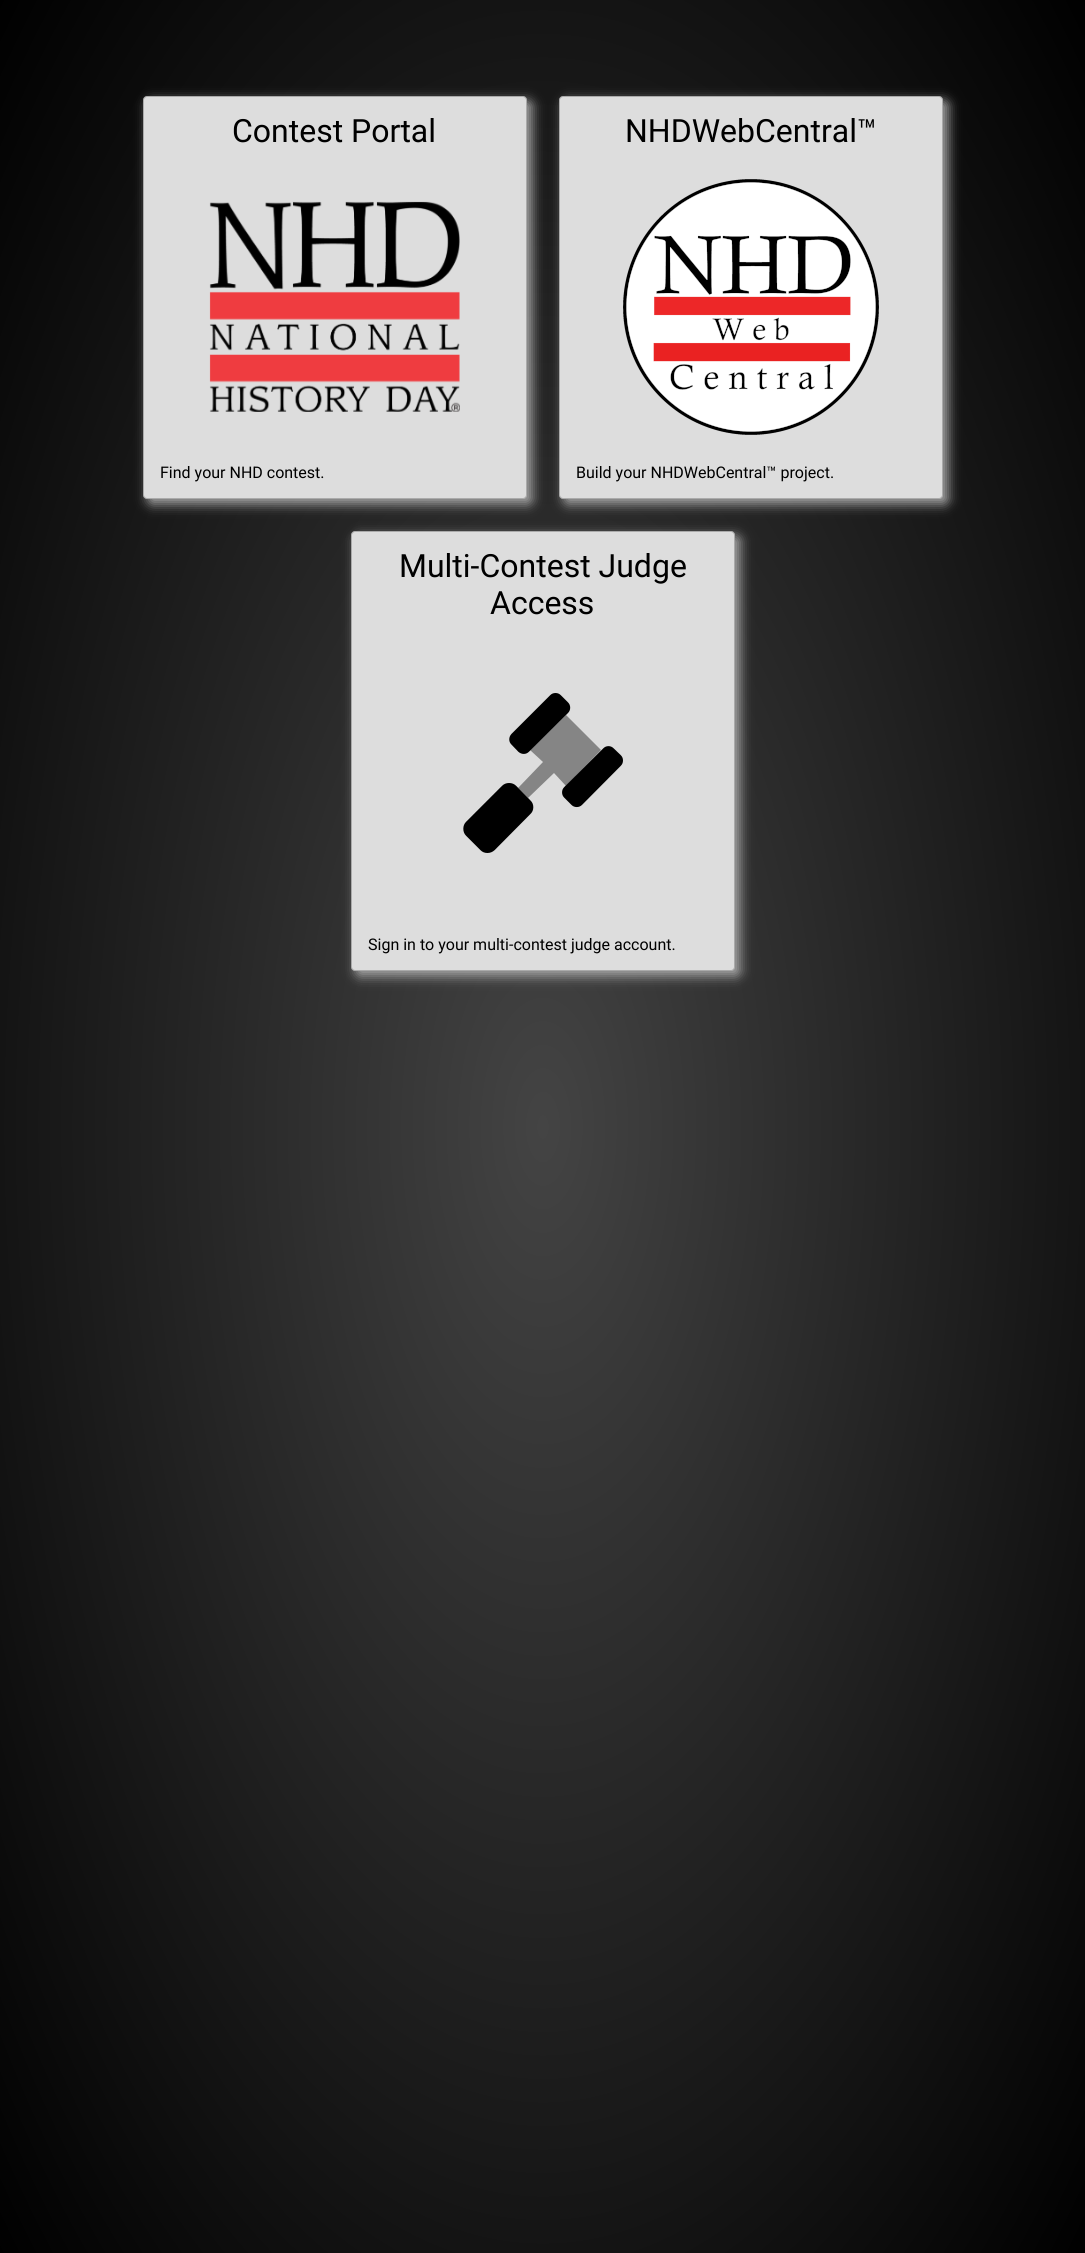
#include <cairo/cairo.h>
#include <math.h>
#include <stddef.h>


static void rounded_rect(cairo_t *cr, double x, double y, double w, double h, double r) {
  cairo_new_sub_path(cr);
  cairo_arc(cr, x + w - r, y + h - r, r, 0, M_PI / 2);
  cairo_arc(cr, x + r, y + h - r, r, M_PI / 2, M_PI);
  cairo_arc(cr, x + r, y + r, r, M_PI, 1.5 * M_PI);
  cairo_arc(cr, x + w - r, y + r, r, 1.5 * M_PI, 2 * M_PI);
  cairo_close_path(cr);
}

static void draw_shadow(cairo_t *cr, double x, double y, double w, double h, double r, double blur, double alpha) {
  cairo_push_group_with_content(cr, CAIRO_CONTENT_ALPHA);
  cairo_set_operator(cr, CAIRO_OPERATOR_SOURCE);
  for (int i = 15; i >= -15 && fmin(w, h) + blur * i / 3 > 0; i -= 2) {
    double e = blur * i / 6;
    cairo_set_source_rgba(cr, 0, 0, 0, alpha * erfc((i - 1) / 8.5) / 2);
    rounded_rect(cr, x - e, y - e, w + 2 * e, h + 2 * e, fmax(0, fmin(r + e + blur * .6, fmin(w, h) / 2 + e)));
    cairo_fill(cr);
  }
  cairo_pattern_t *soft = cairo_pop_group(cr);
  cairo_mask(cr, soft);
  cairo_pattern_destroy(soft);
}

static void draw_image(cairo_t *cr, const char *path, double x, double y, double w, double h) {
  cairo_surface_t *image = cairo_image_surface_create_from_png(path);
  cairo_save(cr);
  cairo_set_source_surface(cr, image, x, y);
  cairo_rectangle(cr, x, y, w, h);
  cairo_fill(cr);
  cairo_restore(cr);
  cairo_surface_destroy(image);
}

static void draw(cairo_t *cr) {
  cairo_pattern_t *gradient;
  cairo_set_source_rgb(cr, 1, 1, 1);
  cairo_paint(cr);
  gradient = cairo_pattern_create_radial(0, 0, 0, 0, 0, 1);
  cairo_pattern_set_matrix(gradient, &(cairo_matrix_t){1.0 / 767, 0, 0, 1.0 / 1593, -1.0 * 543 / 767, -1.0 * 1127 / 1593});
  cairo_pattern_add_color_stop_rgba(gradient, 0, 68 / 255.0, 68 / 255.0, 68 / 255.0, 1);
  cairo_pattern_add_color_stop_rgba(gradient, 1, 0, 0, 0, 1);
  cairo_set_source(cr, gradient);
  cairo_pattern_destroy(gradient);
  cairo_rectangle(cr, 0, 0, 1085, 2253);
  cairo_fill(cr);
  cairo_set_source_rgb(cr, 170 / 255.0, 170 / 255.0, 170 / 255.0);
  draw_shadow(cr, 148, 101, 384, 403, 4, 6, 1);
  cairo_set_source_rgb(cr, 221 / 255.0, 221 / 255.0, 221 / 255.0);
  rounded_rect(cr, 143.5, 96.5, 383, 402, 3.5);
  cairo_fill_preserve(cr);
  cairo_set_source_rgb(cr, 170 / 255.0, 170 / 255.0, 170 / 255.0);
  cairo_set_line_width(cr, 1);
  cairo_stroke(cr);
  draw_image(cr, "images/1.png", 209, 201, 251, 211);
  cairo_set_source_rgb(cr, 170 / 255.0, 170 / 255.0, 170 / 255.0);
  draw_shadow(cr, 564, 101, 384, 403, 4, 6, 1);
  cairo_set_source_rgb(cr, 221 / 255.0, 221 / 255.0, 221 / 255.0);
  rounded_rect(cr, 559.5, 96.5, 383, 402, 3.5);
  cairo_fill_preserve(cr);
  cairo_set_source_rgb(cr, 170 / 255.0, 170 / 255.0, 170 / 255.0);
  cairo_stroke(cr);
  draw_image(cr, "images/2.png", 623, 179, 256, 256);
  cairo_set_source_rgb(cr, 170 / 255.0, 170 / 255.0, 170 / 255.0);
  draw_shadow(cr, 356, 536, 384, 440, 4, 6, 1);
  cairo_set_source_rgb(cr, 221 / 255.0, 221 / 255.0, 221 / 255.0);
  rounded_rect(cr, 351.5, 531.5, 383, 439, 3.5);
  cairo_fill_preserve(cr);
  cairo_set_source_rgb(cr, 170 / 255.0, 170 / 255.0, 170 / 255.0);
  cairo_stroke(cr);
  draw_image(cr, "images/3.png", 463, 693, 160, 160);
  cairo_set_source_rgba(cr, 0, 0, 0, 0.4);
  cairo_new_path(cr);
  cairo_move_to(cr, 601, 750);
  cairo_line_to(cr, 566, 786);
  cairo_line_to(cr, 554, 773);
  cairo_line_to(cr, 528, 798);
  cairo_line_to(cr, 518, 788);
  cairo_line_to(cr, 543, 762);
  cairo_line_to(cr, 530, 750);
  cairo_line_to(cr, 566, 715);
  cairo_close_path(cr);
  cairo_fill(cr);
  cairo_select_font_face(cr, "Roboto", CAIRO_FONT_SLANT_NORMAL, CAIRO_FONT_WEIGHT_NORMAL);
  cairo_set_font_size(cr, 32);
  cairo_set_source_rgb(cr, 0, 0, 0);
  cairo_move_to(cr, 232, 142);
  cairo_show_text(cr, "Contest Portal");
  cairo_set_font_size(cr, 16);
  cairo_move_to(cr, 160, 478);
  cairo_show_text(cr, "Find your NHD contest.");
  cairo_set_font_size(cr, 32);
  cairo_move_to(cr, 625, 142);
  cairo_show_text(cr, "NHDWebCentral™");
  cairo_set_font_size(cr, 16);
  cairo_move_to(cr, 576, 478);
  cairo_show_text(cr, "Build your NHDWebCentral™ project.");
  cairo_set_font_size(cr, 32);
  cairo_move_to(cr, 399, 577);
  cairo_show_text(cr, "Multi-Contest Judge");
  cairo_move_to(cr, 490, 614);
  cairo_show_text(cr, "Access");
  cairo_set_font_size(cr, 16);
  cairo_move_to(cr, 368, 950);
  cairo_show_text(cr, "Sign in to your multi-contest judge account.");
}

int main(void) {
  cairo_surface_t *surface = cairo_image_surface_create(CAIRO_FORMAT_RGB24, 1085, 2253);
  cairo_t *cr = cairo_create(surface);
  cairo_font_options_t *options = cairo_font_options_create();
  cairo_font_options_set_hint_metrics(options, CAIRO_HINT_METRICS_OFF);
  cairo_font_options_set_hint_style(options, CAIRO_HINT_STYLE_NONE);
  cairo_set_font_options(cr, options);
  cairo_set_miter_limit(cr, 4);
  draw(cr);
  cairo_surface_write_to_png(surface, "out.png");
  cairo_font_options_destroy(options);
  cairo_destroy(cr);
  cairo_surface_destroy(surface);
  return 0;
}
